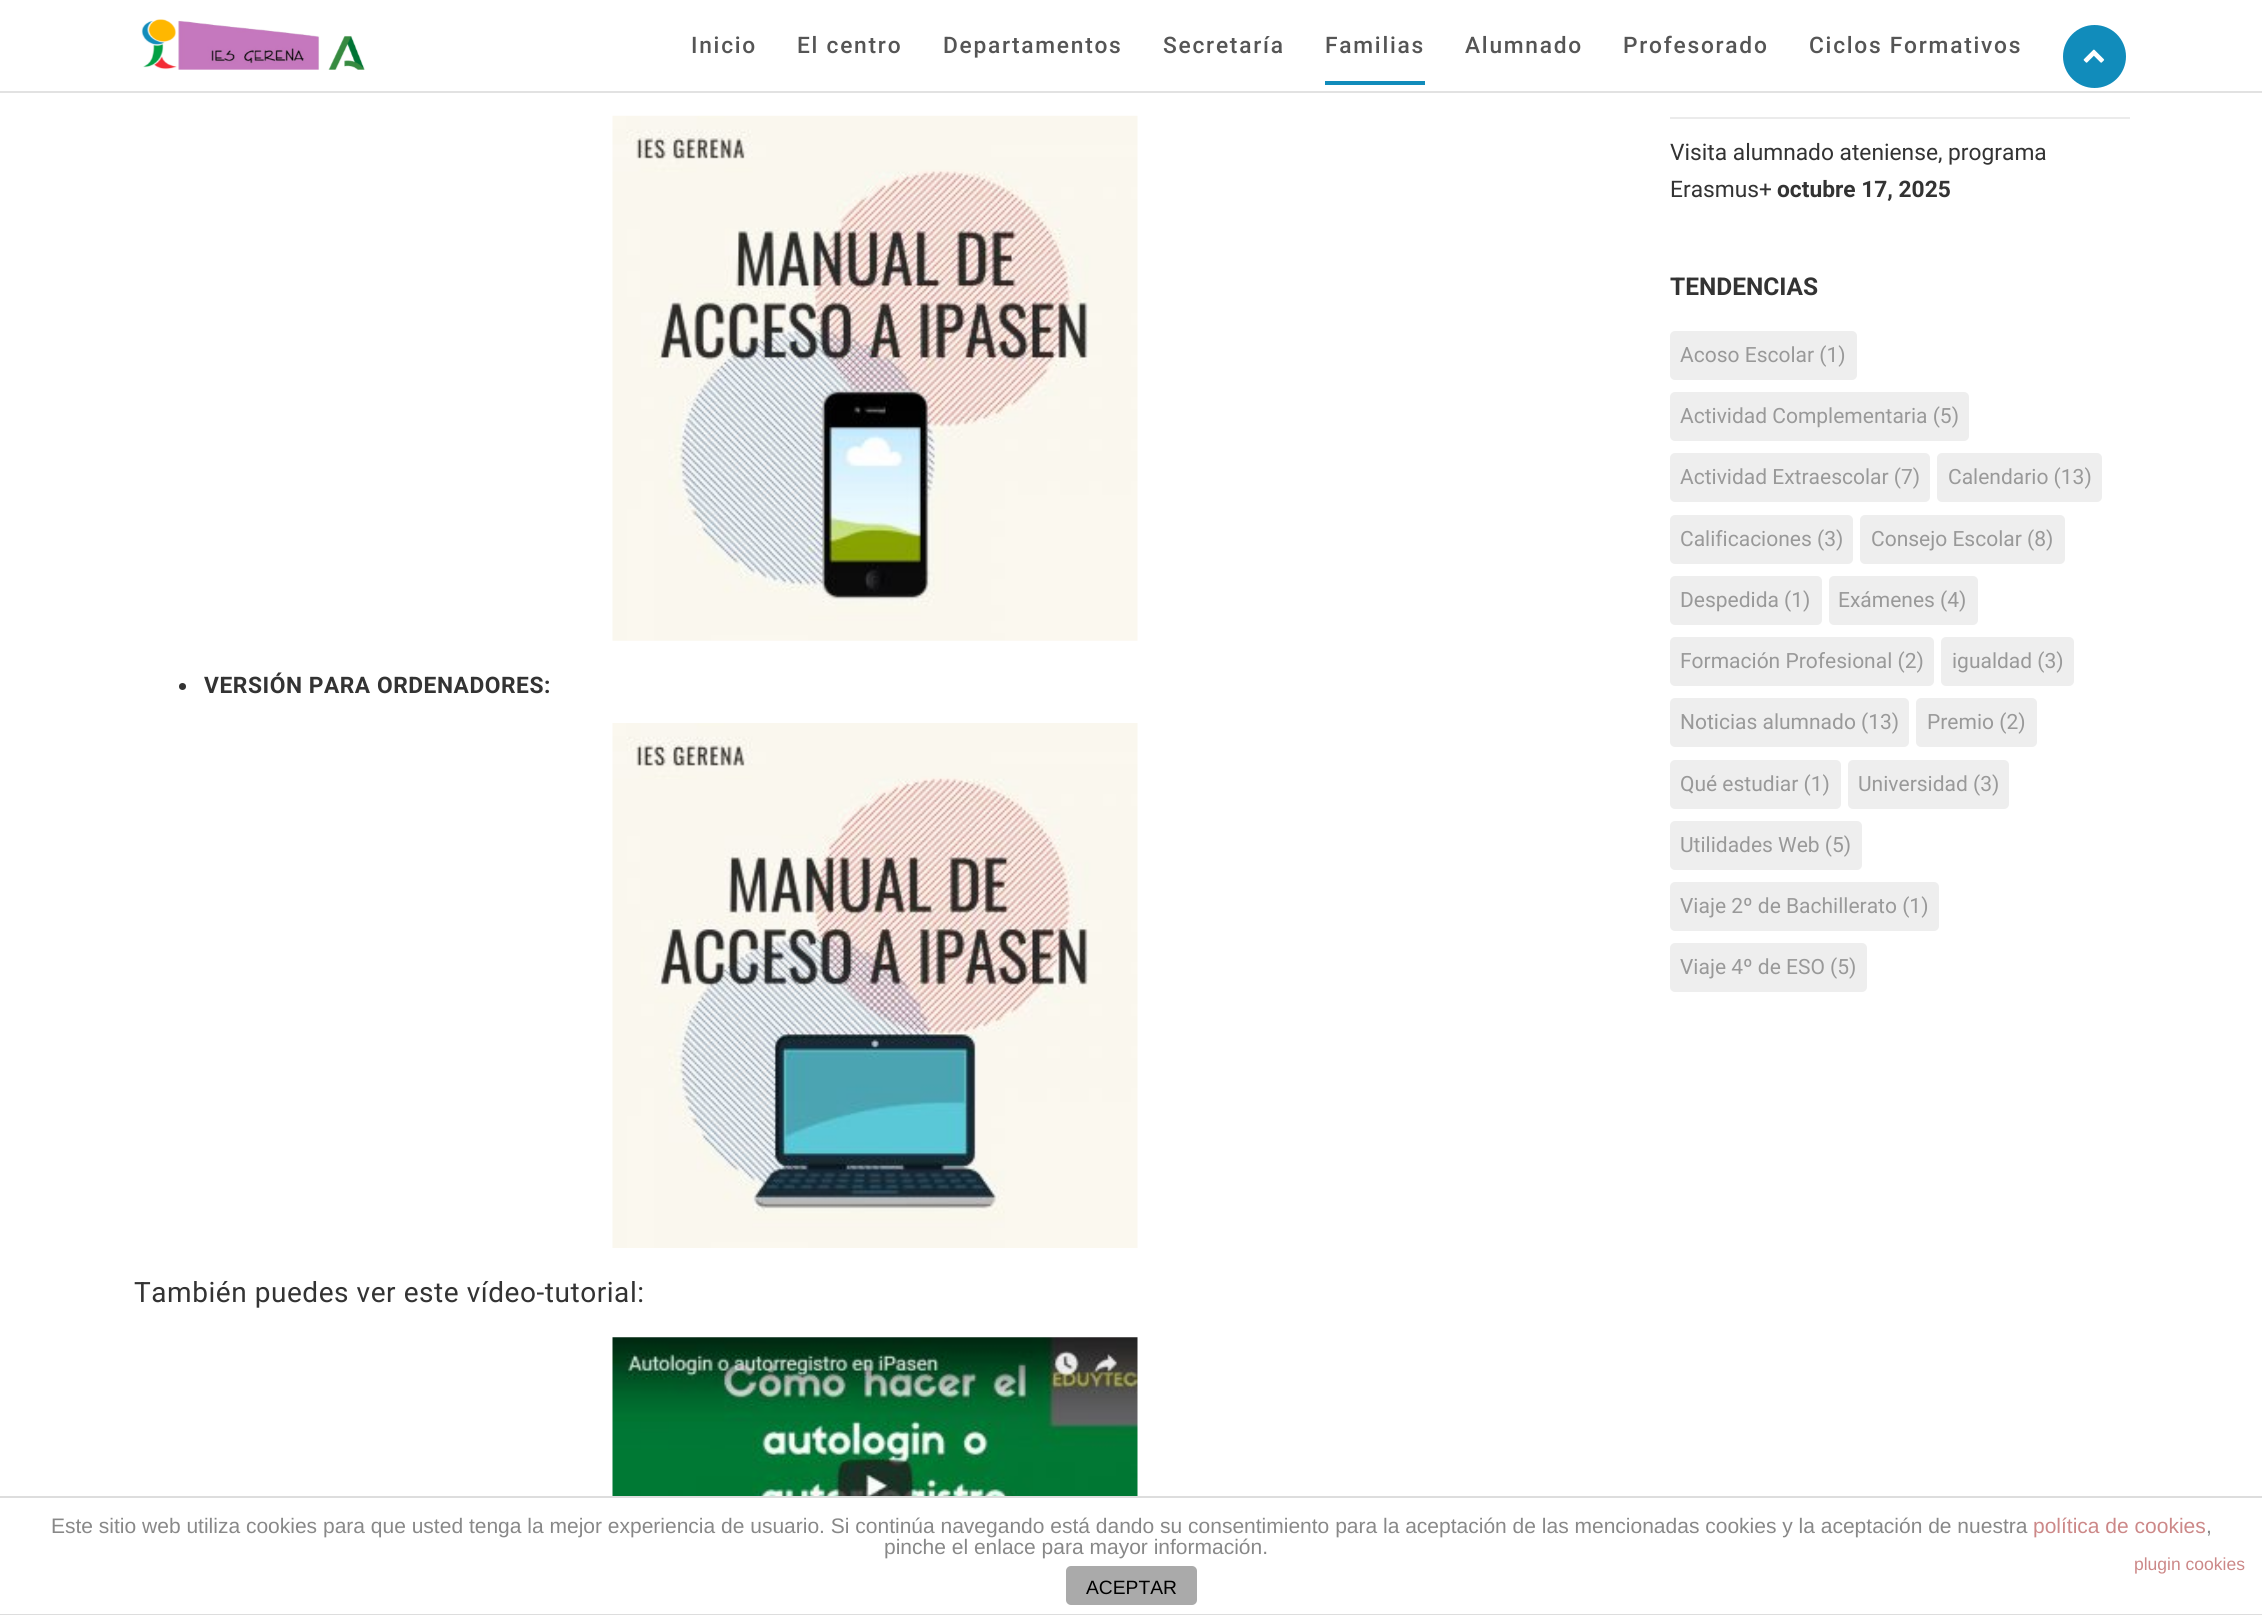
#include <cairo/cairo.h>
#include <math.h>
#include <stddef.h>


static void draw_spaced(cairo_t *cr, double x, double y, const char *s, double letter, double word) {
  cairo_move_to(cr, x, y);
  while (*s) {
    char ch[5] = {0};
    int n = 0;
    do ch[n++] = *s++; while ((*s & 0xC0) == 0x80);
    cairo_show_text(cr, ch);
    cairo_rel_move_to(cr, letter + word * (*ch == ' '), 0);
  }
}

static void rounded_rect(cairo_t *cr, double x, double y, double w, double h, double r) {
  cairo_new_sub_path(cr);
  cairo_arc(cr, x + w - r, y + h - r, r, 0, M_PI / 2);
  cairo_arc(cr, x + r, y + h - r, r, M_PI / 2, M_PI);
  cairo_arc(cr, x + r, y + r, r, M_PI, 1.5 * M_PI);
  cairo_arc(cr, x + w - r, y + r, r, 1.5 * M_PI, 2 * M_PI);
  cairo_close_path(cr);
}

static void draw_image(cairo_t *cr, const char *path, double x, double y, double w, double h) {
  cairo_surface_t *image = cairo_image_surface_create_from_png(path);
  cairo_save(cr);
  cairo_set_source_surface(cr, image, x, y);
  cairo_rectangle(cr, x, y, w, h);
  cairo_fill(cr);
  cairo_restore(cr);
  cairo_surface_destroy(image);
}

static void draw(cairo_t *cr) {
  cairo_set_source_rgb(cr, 1, 1, 1);
  cairo_paint(cr);
  cairo_set_source_rgb(cr, 226 / 255.0, 226 / 255.0, 226 / 255.0);
  cairo_rectangle(cr, 0, 91, 2262, 2);
  cairo_fill(cr);
  draw_image(cr, "images/1.png", 141, 19, 224, 51);
  cairo_set_source_rgb(cr, 17 / 255.0, 140 / 255.0, 187 / 255.0);
  cairo_rectangle(cr, 1325, 81, 100, 4);
  cairo_fill(cr);
  cairo_arc(cr, 2094.5, 56.5, 31.5, 0, 2 * M_PI);
  cairo_fill(cr);
  draw_image(cr, "images/2.png", 2083, 49, 22, 14);
  draw_image(cr, "images/3.png", 612, 115, 526, 526);
  cairo_set_source_rgb(cr, 51 / 255.0, 51 / 255.0, 51 / 255.0);
  cairo_arc(cr, 182.5, 686.5, 3.5, 0, 2 * M_PI);
  cairo_fill(cr);
  draw_image(cr, "images/4.png", 612, 723, 526, 525);
  draw_image(cr, "images/5.png", 612, 1337, 526, 159);
  cairo_set_source_rgb(cr, 235 / 255.0, 235 / 255.0, 235 / 255.0);
  cairo_rectangle(cr, 1670, 117, 460, 2);
  cairo_fill(cr);
  cairo_set_source_rgb(cr, 238 / 255.0, 238 / 255.0, 238 / 255.0);
  rounded_rect(cr, 1670, 331, 187, 49, 5);
  cairo_fill(cr);
  rounded_rect(cr, 1670, 392, 299, 49, 5);
  cairo_fill(cr);
  rounded_rect(cr, 1670, 453, 260, 49, 5);
  cairo_fill(cr);
  rounded_rect(cr, 1937, 453, 165, 49, 5);
  cairo_fill(cr);
  rounded_rect(cr, 1670, 515, 183, 49, 5);
  cairo_fill(cr);
  rounded_rect(cr, 1860, 515, 205, 49, 5);
  cairo_fill(cr);
  rounded_rect(cr, 1670, 576, 152, 49, 5);
  cairo_fill(cr);
  rounded_rect(cr, 1829, 576, 149, 49, 5);
  cairo_fill(cr);
  rounded_rect(cr, 1670, 637, 264, 49, 5);
  cairo_fill(cr);
  rounded_rect(cr, 1941, 637, 133, 49, 5);
  cairo_fill(cr);
  rounded_rect(cr, 1670, 698, 239, 49, 5);
  cairo_fill(cr);
  rounded_rect(cr, 1916, 698, 121, 49, 5);
  cairo_fill(cr);
  rounded_rect(cr, 1670, 760, 171, 49, 5);
  cairo_fill(cr);
  rounded_rect(cr, 1848, 760, 161, 49, 5);
  cairo_fill(cr);
  rounded_rect(cr, 1670, 821, 192, 49, 5);
  cairo_fill(cr);
  rounded_rect(cr, 1670, 882, 269, 49, 5);
  cairo_fill(cr);
  rounded_rect(cr, 1670, 943, 197, 49, 5);
  cairo_fill(cr);
  cairo_set_source_rgb(cr, 221 / 255.0, 221 / 255.0, 221 / 255.0);
  cairo_rectangle(cr, 0, 1496, 2262, 2);
  cairo_fill(cr);
  cairo_rectangle(cr, 0, 1614, 2262, 1);
  cairo_fill(cr);
  cairo_set_source_rgb(cr, 170 / 255.0, 170 / 255.0, 170 / 255.0);
  rounded_rect(cr, 1066, 1566, 131, 39, 5);
  cairo_fill(cr);
  cairo_select_font_face(cr, "Roboto Medium", CAIRO_FONT_SLANT_NORMAL, CAIRO_FONT_WEIGHT_NORMAL);
  cairo_set_font_size(cr, 22.75);
  cairo_set_source_rgb(cr, 85 / 255.0, 85 / 255.0, 85 / 255.0);
  draw_spaced(cr, 691, 53, "Inicio", 1.75, 0);
  draw_spaced(cr, 797, 53, "El centro", 1.75, 0);
  draw_spaced(cr, 943, 53, "Departamentos", 1.75, 0);
  draw_spaced(cr, 1163, 53, "Secretaría", 1.75, 0);
  draw_spaced(cr, 1325, 53, "Familias", 1.75, 0);
  draw_spaced(cr, 1465, 53, "Alumnado", 1.75, 0);
  draw_spaced(cr, 1623, 53, "Profesorado", 1.75, 0);
  draw_spaced(cr, 1809, 53, "Ciclos Formativos", 1.75, 0);
  cairo_select_font_face(cr, "Roboto", CAIRO_FONT_SLANT_NORMAL, CAIRO_FONT_WEIGHT_BOLD);
  cairo_set_source_rgb(cr, 51 / 255.0, 51 / 255.0, 51 / 255.0);
  draw_spaced(cr, 204, 693, "VERSIÓN PARA ORDENADORES:", 0.55, 0);
  cairo_select_font_face(cr, "Roboto", CAIRO_FONT_SLANT_NORMAL, CAIRO_FONT_WEIGHT_NORMAL);
  cairo_set_font_size(cr, 28);
  draw_spaced(cr, 134, 1302, "También puedes ver este vídeo-tutorial:", 0.55, 0);
  cairo_set_font_size(cr, 22.75);
  cairo_move_to(cr, 1670, 160);
  cairo_show_text(cr, "Visita alumnado ateniense, programa");
  cairo_move_to(cr, 1670, 197);
  cairo_show_text(cr, "Erasmus+");
  cairo_select_font_face(cr, "Roboto", CAIRO_FONT_SLANT_NORMAL, CAIRO_FONT_WEIGHT_BOLD);
  cairo_move_to(cr, 1777, 197);
  cairo_show_text(cr, "octubre 17, 2025");
  cairo_set_font_size(cr, 24.5);
  cairo_move_to(cr, 1670, 295);
  cairo_show_text(cr, "TENDENCIAS");
  cairo_select_font_face(cr, "Roboto", CAIRO_FONT_SLANT_NORMAL, CAIRO_FONT_WEIGHT_NORMAL);
  cairo_set_font_size(cr, 21);
  cairo_set_source_rgb(cr, 153 / 255.0, 153 / 255.0, 153 / 255.0);
  cairo_move_to(cr, 1680, 362);
  cairo_show_text(cr, "Acoso Escolar (1)");
  cairo_move_to(cr, 1680, 423);
  cairo_show_text(cr, "Actividad Complementaria (5)");
  cairo_move_to(cr, 1680, 484);
  cairo_show_text(cr, "Actividad Extraescolar (7)");
  cairo_move_to(cr, 1948, 484);
  cairo_show_text(cr, "Calendario (13)");
  cairo_move_to(cr, 1680, 546);
  cairo_show_text(cr, "Calificaciones (3)");
  cairo_move_to(cr, 1871, 546);
  cairo_show_text(cr, "Consejo Escolar (8)");
  cairo_move_to(cr, 1680, 607);
  cairo_show_text(cr, "Despedida (1)");
  cairo_move_to(cr, 1838, 607);
  cairo_show_text(cr, "Exámenes (4)");
  cairo_move_to(cr, 1680, 668);
  cairo_show_text(cr, "Formación Profesional (2)");
  cairo_move_to(cr, 1952, 668);
  cairo_show_text(cr, "igualdad (3)");
  cairo_move_to(cr, 1680, 729);
  cairo_show_text(cr, "Noticias alumnado (13)");
  cairo_move_to(cr, 1927, 729);
  cairo_show_text(cr, "Premio (2)");
  cairo_move_to(cr, 1680, 791);
  cairo_show_text(cr, "Qué estudiar (1)");
  cairo_move_to(cr, 1858, 791);
  cairo_show_text(cr, "Universidad (3)");
  cairo_move_to(cr, 1680, 852);
  cairo_show_text(cr, "Utilidades Web (5)");
  cairo_move_to(cr, 1680, 913);
  cairo_show_text(cr, "Viaje 2º de Bachillerato (1)");
  cairo_move_to(cr, 1680, 974);
  cairo_show_text(cr, "Viaje 4º de ESO (5)");
  cairo_select_font_face(cr, "Liberation Sans", CAIRO_FONT_SLANT_NORMAL, CAIRO_FONT_WEIGHT_NORMAL);
  cairo_set_source_rgb(cr, 136 / 255.0, 136 / 255.0, 136 / 255.0);
  cairo_move_to(cr, 51, 1533);
  cairo_show_text(cr, "Este sitio web utiliza cookies para que usted tenga la mejor experiencia de usuario. Si continúa navegando está dando su consentimiento para la aceptación de las mencionadas cookies y la aceptación de nuestra");
  cairo_set_source_rgb(cr, 204 / 255.0, 136 / 255.0, 136 / 255.0);
  cairo_move_to(cr, 2033, 1533);
  cairo_show_text(cr, "política de cookies");
  cairo_set_source_rgb(cr, 136 / 255.0, 136 / 255.0, 136 / 255.0);
  cairo_move_to(cr, 2206, 1533);
  cairo_show_text(cr, ",");
  cairo_move_to(cr, 884, 1554);
  cairo_show_text(cr, "pinche el enlace para mayor información.");
  cairo_set_font_size(cr, 17.5);
  cairo_set_source_rgb(cr, 204 / 255.0, 136 / 255.0, 136 / 255.0);
  cairo_move_to(cr, 2134, 1570);
  cairo_show_text(cr, "plugin cookies");
  cairo_set_font_size(cr, 19.25);
  cairo_set_source_rgb(cr, 0, 0, 0);
  cairo_move_to(cr, 1086, 1594);
  cairo_show_text(cr, "ACEPTAR");
}

int main(void) {
  cairo_surface_t *surface = cairo_image_surface_create(CAIRO_FORMAT_RGB24, 2262, 1615);
  cairo_t *cr = cairo_create(surface);
  cairo_font_options_t *options = cairo_font_options_create();
  cairo_font_options_set_hint_metrics(options, CAIRO_HINT_METRICS_OFF);
  cairo_font_options_set_hint_style(options, CAIRO_HINT_STYLE_NONE);
  cairo_set_font_options(cr, options);
  cairo_set_miter_limit(cr, 4);
  draw(cr);
  cairo_surface_write_to_png(surface, "out.png");
  cairo_font_options_destroy(options);
  cairo_destroy(cr);
  cairo_surface_destroy(surface);
  return 0;
}
